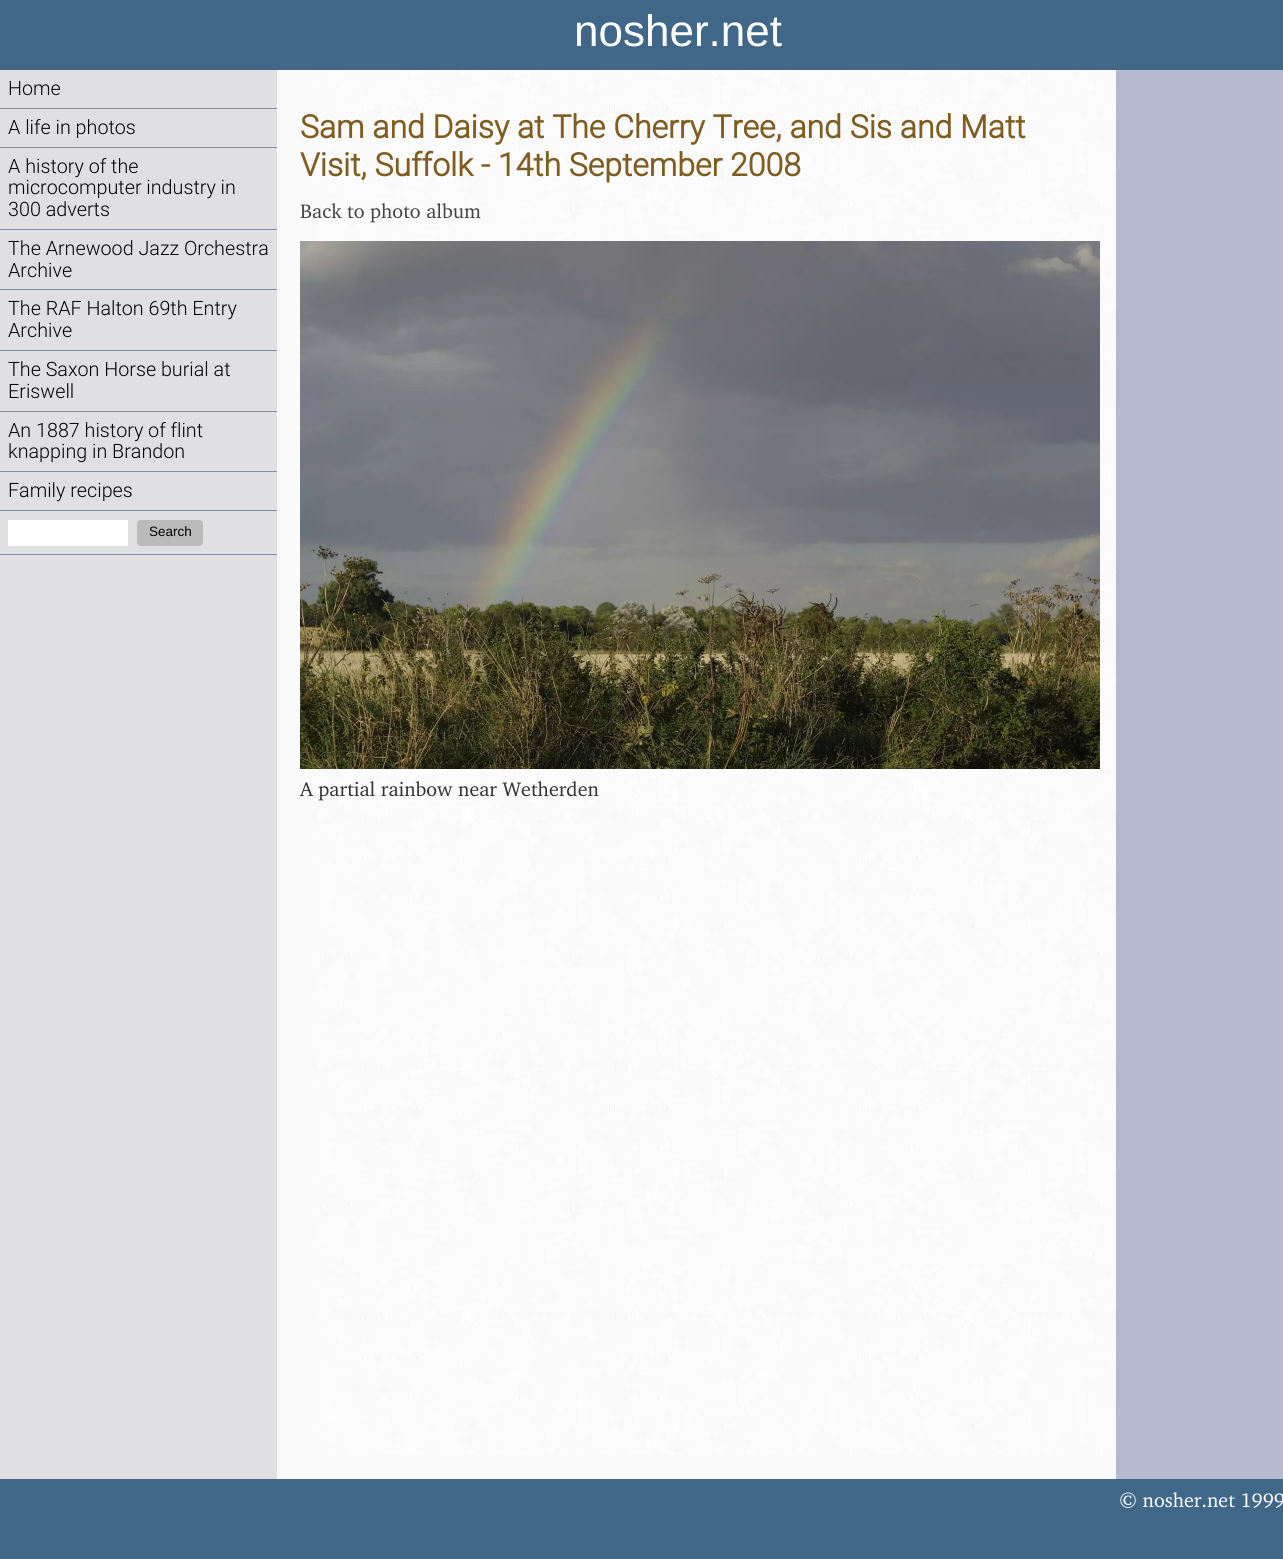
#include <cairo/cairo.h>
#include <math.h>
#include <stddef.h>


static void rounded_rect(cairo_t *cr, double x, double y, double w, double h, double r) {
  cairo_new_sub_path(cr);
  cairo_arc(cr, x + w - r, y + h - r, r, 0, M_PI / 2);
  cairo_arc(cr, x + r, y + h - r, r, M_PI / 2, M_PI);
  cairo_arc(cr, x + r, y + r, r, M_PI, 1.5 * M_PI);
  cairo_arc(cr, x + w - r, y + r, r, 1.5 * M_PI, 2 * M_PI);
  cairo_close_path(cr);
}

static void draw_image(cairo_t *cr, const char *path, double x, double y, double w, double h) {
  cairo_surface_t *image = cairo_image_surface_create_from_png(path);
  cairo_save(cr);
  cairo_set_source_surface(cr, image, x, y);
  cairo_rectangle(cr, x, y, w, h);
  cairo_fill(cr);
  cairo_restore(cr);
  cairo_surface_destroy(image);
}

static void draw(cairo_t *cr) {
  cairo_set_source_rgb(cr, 250 / 255.0, 250 / 255.0, 250 / 255.0);
  cairo_paint(cr);
  cairo_set_source_rgb(cr, 65 / 255.0, 103 / 255.0, 136 / 255.0);
  cairo_rectangle(cr, 0, 0, 1283, 70);
  cairo_fill(cr);
  cairo_set_source_rgb(cr, 224 / 255.0, 224 / 255.0, 226 / 255.0);
  cairo_rectangle(cr, 0, 70, 277, 1409);
  cairo_fill(cr);
  cairo_set_source_rgb(cr, 131 / 255.0, 140 / 255.0, 160 / 255.0);
  cairo_rectangle(cr, 0, 108, 277, 1);
  cairo_fill(cr);
  cairo_rectangle(cr, 0, 147, 277, 1);
  cairo_fill(cr);
  cairo_rectangle(cr, 0, 229, 277, 1);
  cairo_fill(cr);
  cairo_rectangle(cr, 0, 289, 277, 1);
  cairo_fill(cr);
  cairo_rectangle(cr, 0, 350, 277, 1);
  cairo_fill(cr);
  cairo_rectangle(cr, 0, 411, 277, 1);
  cairo_fill(cr);
  cairo_rectangle(cr, 0, 471, 277, 1);
  cairo_fill(cr);
  cairo_rectangle(cr, 0, 510, 277, 1);
  cairo_fill(cr);
  cairo_rectangle(cr, 0, 554, 277, 1);
  cairo_fill(cr);
  cairo_set_source_rgb(cr, 1, 1, 1);
  cairo_rectangle(cr, 8, 520, 120, 26);
  cairo_fill(cr);
  cairo_set_source_rgb(cr, 187 / 255.0, 187 / 255.0, 187 / 255.0);
  rounded_rect(cr, 137, 520, 66, 26, 4);
  cairo_fill(cr);
  draw_image(cr, "images/1.png", 318, 70, 798, 1385);
  draw_image(cr, "images/2.png", 300, 241, 800, 528);
  cairo_set_source_rgb(cr, 181 / 255.0, 186 / 255.0, 208 / 255.0);
  cairo_rectangle(cr, 1116, 70, 167, 1409);
  cairo_fill(cr);
  cairo_set_source_rgb(cr, 65 / 255.0, 103 / 255.0, 136 / 255.0);
  cairo_rectangle(cr, 0, 1479, 1283, 80);
  cairo_fill(cr);
  cairo_select_font_face(cr, "Liberation Sans", CAIRO_FONT_SLANT_NORMAL, CAIRO_FONT_WEIGHT_NORMAL);
  cairo_set_font_size(cr, 44);
  cairo_set_source_rgb(cr, 1, 1, 1);
  cairo_move_to(cr, 574, 46);
  cairo_show_text(cr, "nosher.net");
  cairo_select_font_face(cr, "Roboto Light", CAIRO_FONT_SLANT_NORMAL, CAIRO_FONT_WEIGHT_NORMAL);
  cairo_set_font_size(cr, 19.75);
  cairo_set_source_rgb(cr, 0, 0, 0);
  cairo_move_to(cr, 8, 95);
  cairo_show_text(cr, "Home");
  cairo_move_to(cr, 8, 134);
  cairo_show_text(cr, "A life in photos");
  cairo_move_to(cr, 8, 173);
  cairo_show_text(cr, "A history of the");
  cairo_move_to(cr, 8, 194);
  cairo_show_text(cr, "microcomputer industry in");
  cairo_move_to(cr, 8, 216);
  cairo_show_text(cr, "300 adverts");
  cairo_move_to(cr, 8, 255);
  cairo_show_text(cr, "The Arnewood Jazz Orchestra");
  cairo_move_to(cr, 8, 277);
  cairo_show_text(cr, "Archive");
  cairo_move_to(cr, 8, 315);
  cairo_show_text(cr, "The RAF Halton 69th Entry");
  cairo_move_to(cr, 8, 337);
  cairo_show_text(cr, "Archive");
  cairo_move_to(cr, 8, 376);
  cairo_show_text(cr, "The Saxon Horse burial at");
  cairo_move_to(cr, 8, 398);
  cairo_show_text(cr, "Eriswell");
  cairo_move_to(cr, 8, 437);
  cairo_show_text(cr, "An 1887 history of flint");
  cairo_move_to(cr, 8, 458);
  cairo_show_text(cr, "knapping in Brandon");
  cairo_move_to(cr, 8, 497);
  cairo_show_text(cr, "Family recipes");
  cairo_select_font_face(cr, "Liberation Sans", CAIRO_FONT_SLANT_NORMAL, CAIRO_FONT_WEIGHT_NORMAL);
  cairo_set_font_size(cr, 13.5);
  cairo_move_to(cr, 149, 536);
  cairo_show_text(cr, "Search");
  cairo_select_font_face(cr, "Roboto", CAIRO_FONT_SLANT_NORMAL, CAIRO_FONT_WEIGHT_BOLD);
  cairo_set_font_size(cr, 32);
  cairo_set_source_rgb(cr, 127 / 255.0, 93 / 255.0, 33 / 255.0);
  cairo_move_to(cr, 300, 138);
  cairo_show_text(cr, "Sam and Daisy at The Cherry Tree, and Sis and Matt");
  cairo_move_to(cr, 300, 176);
  cairo_show_text(cr, "Visit, Suffolk - 14th September 2008");
  cairo_select_font_face(cr, "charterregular", CAIRO_FONT_SLANT_NORMAL, CAIRO_FONT_WEIGHT_NORMAL);
  cairo_set_font_size(cr, 20);
  cairo_set_source_rgb(cr, 68 / 255.0, 68 / 255.0, 68 / 255.0);
  cairo_move_to(cr, 300, 218);
  cairo_show_text(cr, "Back to photo album");
  cairo_set_source_rgb(cr, 51 / 255.0, 51 / 255.0, 51 / 255.0);
  cairo_move_to(cr, 300, 796);
  cairo_show_text(cr, "A partial rainbow near Wetherden");
  cairo_set_source_rgb(cr, 1, 1, 1);
  cairo_move_to(cr, 1119, 1507);
  cairo_show_text(cr, "© nosher.net 1999");
}

int main(void) {
  cairo_surface_t *surface = cairo_image_surface_create(CAIRO_FORMAT_RGB24, 1283, 1559);
  cairo_t *cr = cairo_create(surface);
  cairo_font_options_t *options = cairo_font_options_create();
  cairo_font_options_set_hint_metrics(options, CAIRO_HINT_METRICS_OFF);
  cairo_font_options_set_hint_style(options, CAIRO_HINT_STYLE_NONE);
  cairo_set_font_options(cr, options);
  cairo_set_miter_limit(cr, 4);
  draw(cr);
  cairo_surface_write_to_png(surface, "out.png");
  cairo_font_options_destroy(options);
  cairo_destroy(cr);
  cairo_surface_destroy(surface);
  return 0;
}
